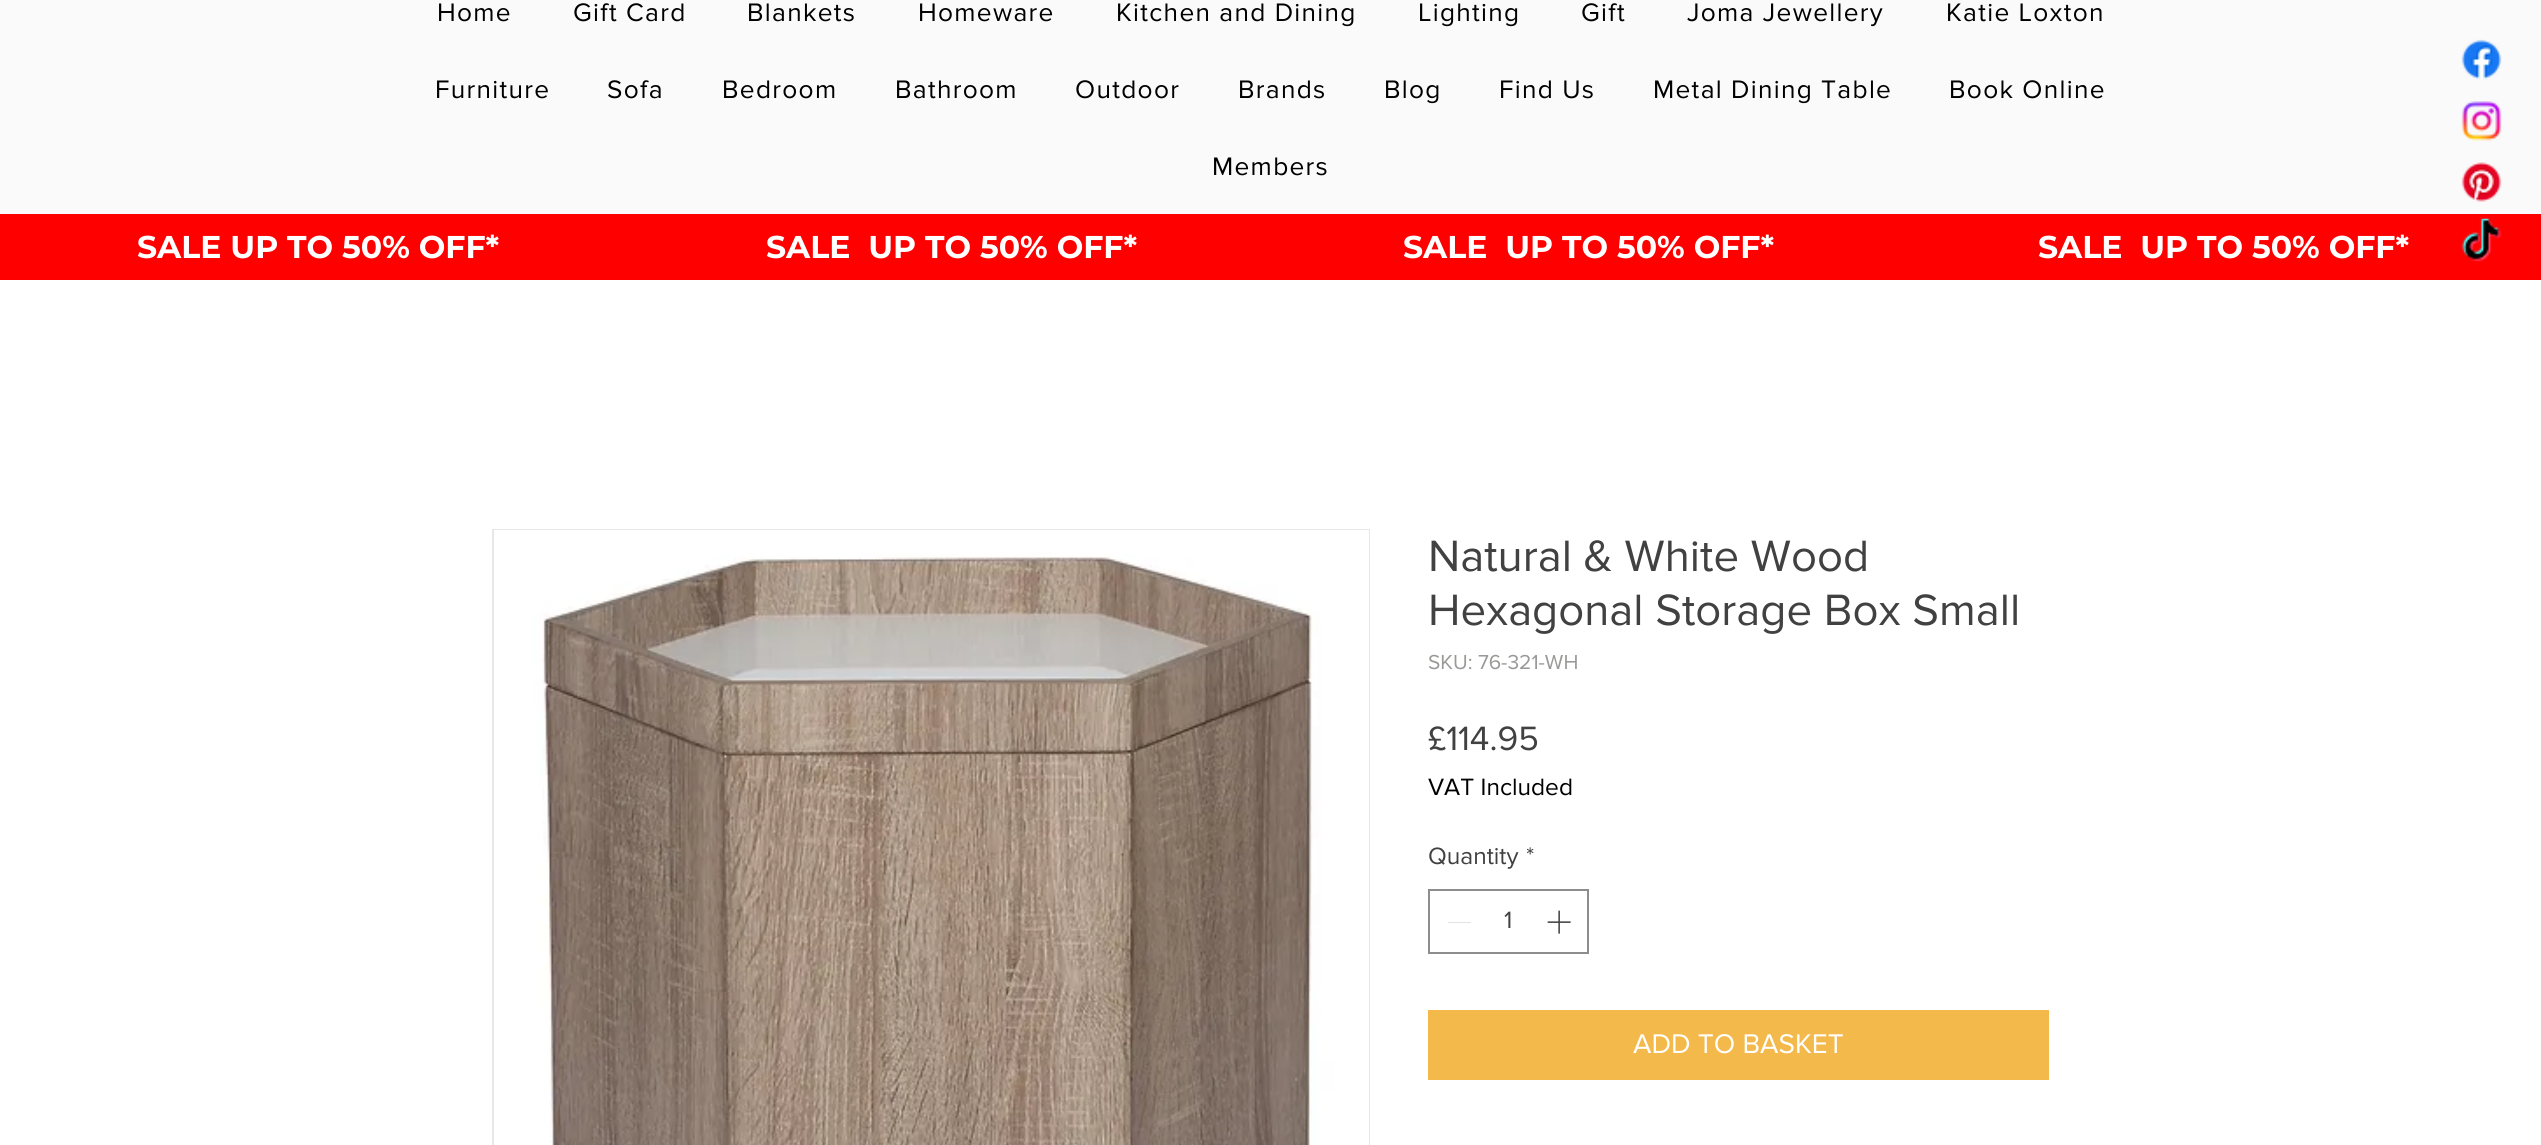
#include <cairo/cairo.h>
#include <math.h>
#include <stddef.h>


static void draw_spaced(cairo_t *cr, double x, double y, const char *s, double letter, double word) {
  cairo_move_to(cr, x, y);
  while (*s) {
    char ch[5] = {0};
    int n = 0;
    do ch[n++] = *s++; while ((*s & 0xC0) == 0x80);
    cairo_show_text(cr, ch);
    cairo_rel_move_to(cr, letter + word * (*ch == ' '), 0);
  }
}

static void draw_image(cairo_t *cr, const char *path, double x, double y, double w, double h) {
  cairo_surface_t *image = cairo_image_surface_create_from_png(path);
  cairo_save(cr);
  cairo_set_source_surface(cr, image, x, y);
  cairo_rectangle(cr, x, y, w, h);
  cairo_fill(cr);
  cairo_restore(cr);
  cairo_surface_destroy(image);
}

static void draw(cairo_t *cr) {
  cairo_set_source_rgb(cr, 1, 1, 1);
  cairo_paint(cr);
  cairo_set_source_rgb(cr, 250 / 255.0, 250 / 255.0, 250 / 255.0);
  cairo_rectangle(cr, 0, 0, 2541, 214);
  cairo_fill(cr);
  cairo_set_source_rgb(cr, 1, 0, 0);
  cairo_rectangle(cr, 0, 214, 2541, 66);
  cairo_fill(cr);
  draw_image(cr, "images/1.png", 2461, 39, 41, 41);
  draw_image(cr, "images/2.png", 2461, 101, 41, 40);
  draw_image(cr, "images/3.png", 2461, 162, 41, 40);
  draw_image(cr, "images/4.png", 2461, 218, 41, 44);
  cairo_rectangle(cr, 493, 530, 876, 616);
  cairo_set_source_rgb(cr, 232 / 255.0, 230 / 255.0, 230 / 255.0);
  cairo_stroke(cr);
  draw_image(cr, "images/5.png", 494, 530, 875, 615);
  cairo_rectangle(cr, 1429, 890, 159, 63);
  cairo_set_source_rgb(cr, 141 / 255.0, 141 / 255.0, 141 / 255.0);
  cairo_stroke(cr);
  cairo_set_source_rgb(cr, 227 / 255.0, 227 / 255.0, 227 / 255.0);
  cairo_rectangle(cr, 1448, 922, 23, 1);
  cairo_fill(cr);
  draw_image(cr, "images/6.png", 1547, 910, 24, 24);
  cairo_set_source_rgb(cr, 243 / 255.0, 185 / 255.0, 75 / 255.0);
  cairo_rectangle(cr, 1428, 1010, 621, 70);
  cairo_fill(cr);
  cairo_select_font_face(cr, "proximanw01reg", CAIRO_FONT_SLANT_NORMAL, CAIRO_FONT_WEIGHT_NORMAL);
  cairo_set_font_size(cr, 26.25);
  cairo_set_source_rgb(cr, 0, 0, 0);
  draw_spaced(cr, 437, 21, "Home", 1.3, 0);
  draw_spaced(cr, 573, 21, "Gift Card", 1.3, 0);
  draw_spaced(cr, 747, 21, "Blankets", 1.3, 0);
  draw_spaced(cr, 918, 21, "Homeware", 1.3, 0);
  draw_spaced(cr, 1116, 21, "Kitchen and Dining", 1.3, 0);
  draw_spaced(cr, 1418, 21, "Lighting", 1.3, 0);
  draw_spaced(cr, 1581, 21, "Gift", 1.3, 0);
  draw_spaced(cr, 1687, 21, "Joma Jewellery", 1.3, 0);
  draw_spaced(cr, 1946, 21, "Katie Loxton", 1.3, 0);
  draw_spaced(cr, 435, 98, "Furniture", 1.3, 0);
  draw_spaced(cr, 607, 98, "Sofa", 1.3, 0);
  draw_spaced(cr, 722, 98, "Bedroom", 1.3, 0);
  draw_spaced(cr, 895, 98, "Bathroom", 1.3, 0);
  draw_spaced(cr, 1075, 98, "Outdoor", 1.3, 0);
  draw_spaced(cr, 1238, 98, "Brands", 1.3, 0);
  draw_spaced(cr, 1384, 98, "Blog", 1.3, 0);
  draw_spaced(cr, 1499, 98, "Find Us", 1.3, 0);
  draw_spaced(cr, 1653, 98, "Metal Dining Table", 1.3, 0);
  draw_spaced(cr, 1949, 98, "Book Online", 1.3, 0);
  draw_spaced(cr, 1212, 175, "Members", 1.3, 0);
  cairo_select_font_face(cr, "Montserrat", CAIRO_FONT_SLANT_NORMAL, CAIRO_FONT_WEIGHT_BOLD);
  cairo_set_font_size(cr, 31.5);
  cairo_set_source_rgb(cr, 1, 1, 1);
  cairo_move_to(cr, 137, 258);
  cairo_show_text(cr, "SALE UP TO 50% OFF*");
  cairo_move_to(cr, 766, 258);
  cairo_show_text(cr, "SALE  UP TO 50% OFF*");
  cairo_move_to(cr, 1403, 258);
  cairo_show_text(cr, "SALE  UP TO 50% OFF*");
  cairo_move_to(cr, 2038, 258);
  cairo_show_text(cr, "SALE  UP TO 50% OFF*");
  cairo_select_font_face(cr, "proximanw01reg", CAIRO_FONT_SLANT_NORMAL, CAIRO_FONT_WEIGHT_NORMAL);
  cairo_set_font_size(cr, 45.5);
  cairo_set_source_rgb(cr, 65 / 255.0, 65 / 255.0, 65 / 255.0);
  cairo_move_to(cr, 1428, 571);
  cairo_show_text(cr, "Natural & White Wood");
  cairo_move_to(cr, 1428, 625);
  cairo_show_text(cr, "Hexagonal Storage Box Small");
  cairo_set_font_size(cr, 21);
  cairo_set_source_rgb(cr, 153 / 255.0, 153 / 255.0, 151 / 255.0);
  cairo_move_to(cr, 1428, 669);
  cairo_show_text(cr, "SKU: 76-321-WH");
  cairo_set_font_size(cr, 35);
  cairo_set_source_rgb(cr, 65 / 255.0, 65 / 255.0, 65 / 255.0);
  cairo_move_to(cr, 1428, 750);
  cairo_show_text(cr, "£114.95");
  cairo_set_font_size(cr, 24.5);
  cairo_set_source_rgb(cr, 0, 0, 0);
  cairo_move_to(cr, 1428, 795);
  cairo_show_text(cr, "VAT Included");
  cairo_set_source_rgb(cr, 65 / 255.0, 65 / 255.0, 65 / 255.0);
  cairo_move_to(cr, 1428, 864);
  cairo_show_text(cr, "Quantity");
  cairo_move_to(cr, 1526, 864);
  cairo_show_text(cr, "*");
  cairo_move_to(cr, 1504, 928);
  cairo_show_text(cr, "1");
  cairo_set_font_size(cr, 28);
  cairo_set_source_rgb(cr, 1, 1, 1);
  cairo_move_to(cr, 1633, 1053);
  cairo_show_text(cr, "ADD TO BASKET");
}

int main(void) {
  cairo_surface_t *surface = cairo_image_surface_create(CAIRO_FORMAT_RGB24, 2541, 1145);
  cairo_t *cr = cairo_create(surface);
  cairo_font_options_t *options = cairo_font_options_create();
  cairo_font_options_set_hint_metrics(options, CAIRO_HINT_METRICS_OFF);
  cairo_font_options_set_hint_style(options, CAIRO_HINT_STYLE_NONE);
  cairo_set_font_options(cr, options);
  cairo_set_miter_limit(cr, 4);
  draw(cr);
  cairo_surface_write_to_png(surface, "out.png");
  cairo_font_options_destroy(options);
  cairo_destroy(cr);
  cairo_surface_destroy(surface);
  return 0;
}
